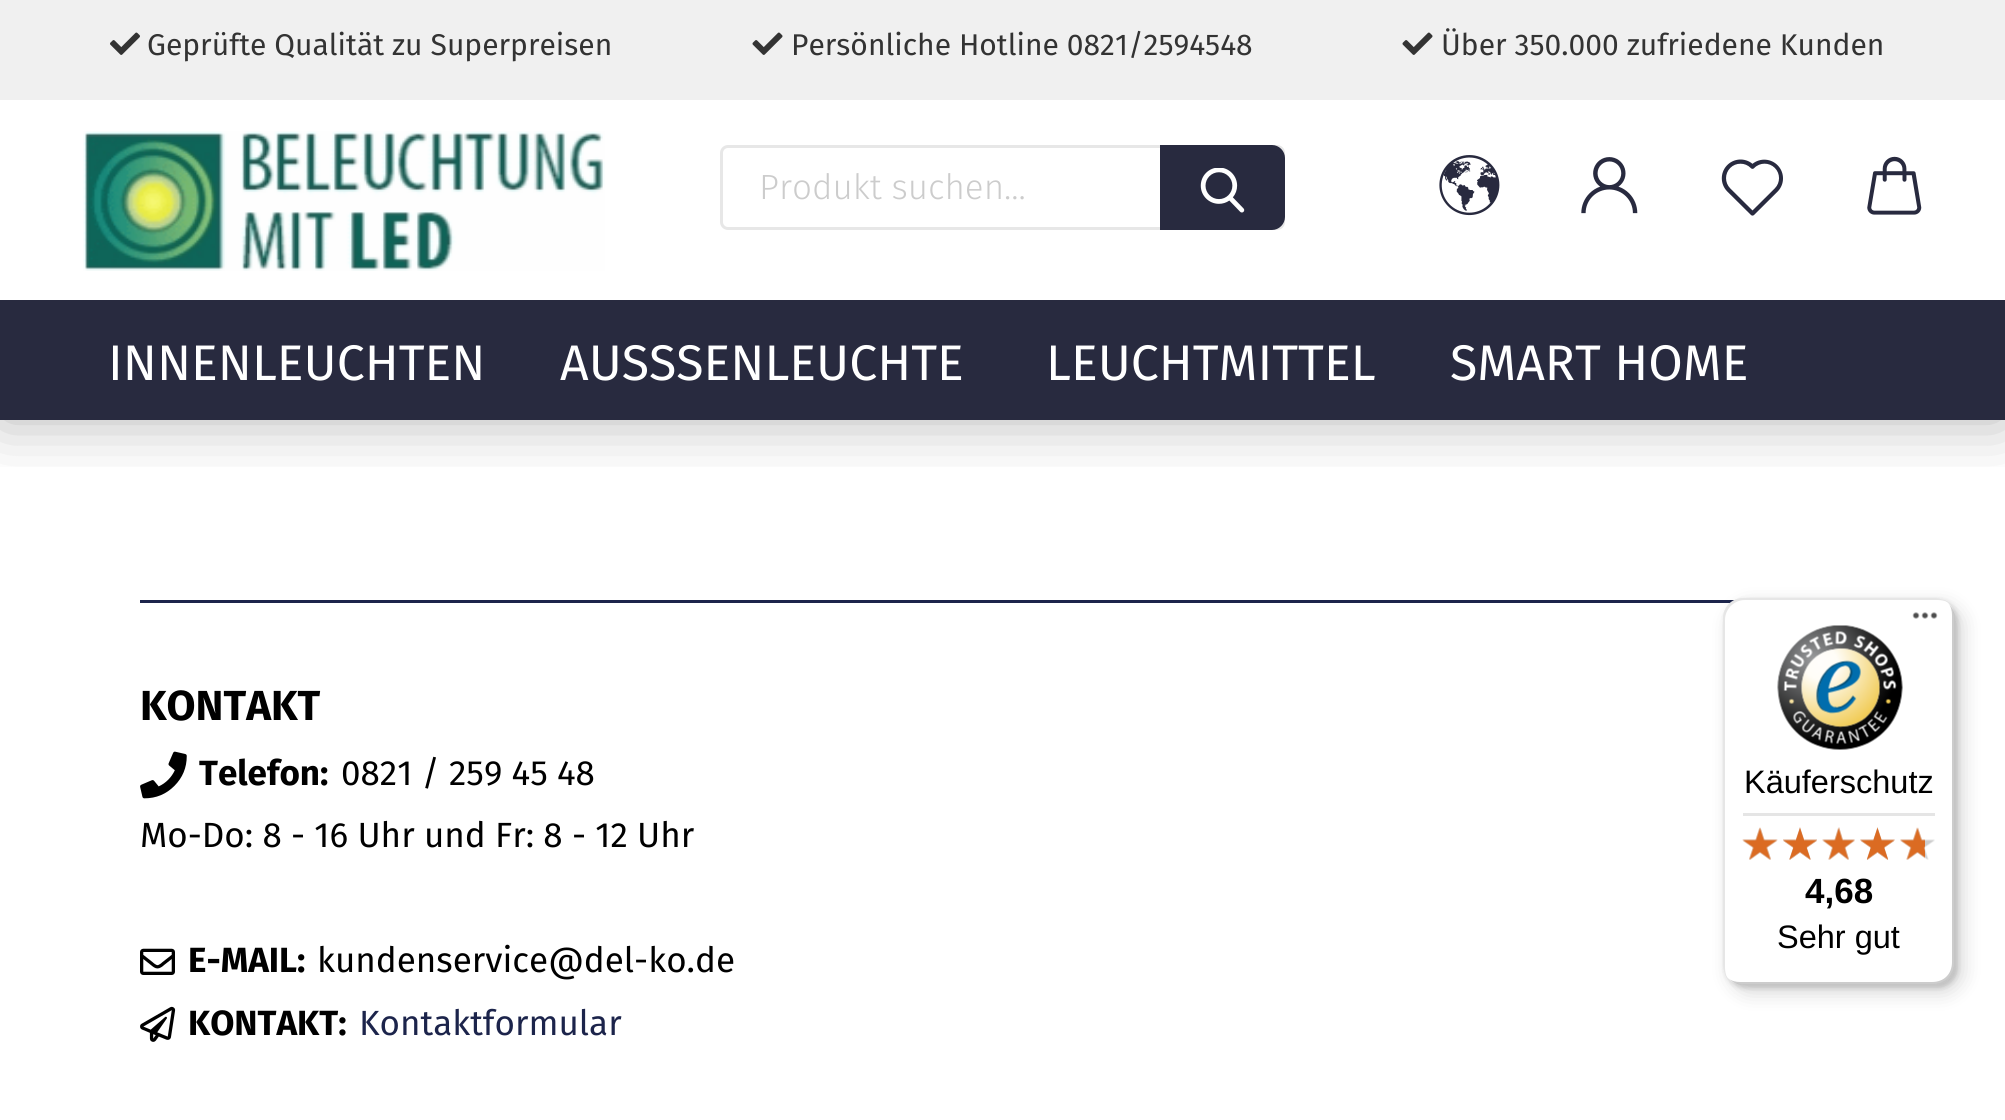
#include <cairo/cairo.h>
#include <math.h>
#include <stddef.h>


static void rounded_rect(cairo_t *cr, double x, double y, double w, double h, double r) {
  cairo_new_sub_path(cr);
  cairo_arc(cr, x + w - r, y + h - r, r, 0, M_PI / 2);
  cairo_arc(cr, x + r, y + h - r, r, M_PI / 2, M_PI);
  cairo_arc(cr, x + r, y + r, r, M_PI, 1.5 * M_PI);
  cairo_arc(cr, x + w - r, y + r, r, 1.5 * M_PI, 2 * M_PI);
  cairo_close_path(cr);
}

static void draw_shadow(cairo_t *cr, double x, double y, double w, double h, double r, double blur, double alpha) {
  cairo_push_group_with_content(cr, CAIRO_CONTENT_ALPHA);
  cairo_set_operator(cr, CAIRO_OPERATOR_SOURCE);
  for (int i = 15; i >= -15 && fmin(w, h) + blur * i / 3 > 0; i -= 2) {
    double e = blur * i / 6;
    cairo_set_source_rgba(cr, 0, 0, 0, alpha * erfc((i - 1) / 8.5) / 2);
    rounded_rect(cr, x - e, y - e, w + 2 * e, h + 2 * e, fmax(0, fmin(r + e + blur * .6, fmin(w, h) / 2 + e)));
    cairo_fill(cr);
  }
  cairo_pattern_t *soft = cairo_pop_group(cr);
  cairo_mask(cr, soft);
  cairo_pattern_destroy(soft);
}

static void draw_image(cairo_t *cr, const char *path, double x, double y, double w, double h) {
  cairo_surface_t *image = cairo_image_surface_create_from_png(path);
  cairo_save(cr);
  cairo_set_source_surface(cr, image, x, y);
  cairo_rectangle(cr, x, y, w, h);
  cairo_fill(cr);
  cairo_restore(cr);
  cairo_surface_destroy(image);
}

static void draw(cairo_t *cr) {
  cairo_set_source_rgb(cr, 1, 1, 1);
  cairo_paint(cr);
  cairo_save(cr);
  cairo_rectangle(cr, 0, 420, 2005, 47);
  cairo_clip(cr);
  cairo_set_source_rgb(cr, 0, 0, 0);
  draw_shadow(cr, 0, 100, 2005, 320, 0, 31, 0.3);
  cairo_restore(cr);
  cairo_set_source_rgb(cr, 240 / 255.0, 240 / 255.0, 240 / 255.0);
  cairo_rectangle(cr, 0, 0, 2005, 100);
  cairo_fill(cr);
  draw_image(cr, "images/1.png", 110, 32, 30, 23);
  draw_image(cr, "images/2.png", 752, 32, 31, 23);
  draw_image(cr, "images/2.png", 1402, 32, 31, 23);
  draw_image(cr, "images/3.png", 83, 131, 522, 140);
  rounded_rect(cr, 721.5, 146.5, 562, 82, 6.5);
  cairo_set_source_rgb(cr, 231 / 255.0, 231 / 255.0, 231 / 255.0);
  cairo_set_line_width(cr, 3);
  cairo_stroke(cr);
  cairo_set_source_rgb(cr, 40 / 255.0, 42 / 255.0, 63 / 255.0);
  cairo_new_path(cr);
  cairo_move_to(cr, 1160, 145);
  cairo_line_to(cr, 1272, 145);
  cairo_curve_to(cr, 1279, 145, 1285, 151, 1285, 158);
  cairo_line_to(cr, 1285, 217);
  cairo_curve_to(cr, 1285, 224, 1279, 230, 1272, 230);
  cairo_line_to(cr, 1160, 230);
  cairo_close_path(cr);
  cairo_fill(cr);
  draw_image(cr, "images/4.png", 1200, 168, 45, 45);
  draw_image(cr, "images/5.png", 1439, 155, 61, 61);
  draw_image(cr, "images/6.png", 1581, 157, 57, 57);
  draw_image(cr, "images/7.png", 1721, 159, 62, 57);
  draw_image(cr, "images/8.png", 1867, 156, 55, 59);
  cairo_rectangle(cr, 0, 300, 2005, 120);
  cairo_fill(cr);
  cairo_set_source_rgb(cr, 28 / 255.0, 36 / 255.0, 75 / 255.0);
  cairo_rectangle(cr, 140, 600, 1595, 3);
  cairo_fill(cr);
  draw_image(cr, "images/9.png", 140, 751, 47, 48);
  draw_image(cr, "images/10.png", 140, 948, 35, 27);
  draw_image(cr, "images/11.png", 140, 1006, 36, 36);
  cairo_set_source_rgb(cr, 0, 0, 0);
  draw_shadow(cr, 1730, 605, 233, 388, 20, 10, 0.15);
  draw_shadow(cr, 1725, 600, 233, 388, 20, 2.5, 0.15);
  cairo_set_source_rgb(cr, 1, 1, 1);
  rounded_rect(cr, 1723, 598, 232, 387, 20);
  cairo_fill(cr);
  cairo_set_source_rgba(cr, 0, 0, 0, 0.1);
  cairo_new_path(cr);
  cairo_move_to(cr, 1745, 600);
  cairo_line_to(cr, 1938, 600);
  cairo_curve_to(cr, 1941, 600, 1945, 601, 1948, 602);
  cairo_curve_to(cr, 1944, 600, 1940, 598, 1935, 598);
  cairo_line_to(cr, 1743, 598);
  cairo_curve_to(cr, 1732, 598, 1723, 607, 1723, 618);
  cairo_line_to(cr, 1723, 965);
  cairo_curve_to(cr, 1723, 970, 1725, 974, 1727, 978);
  cairo_curve_to(cr, 1726, 975, 1725, 971, 1725, 968);
  cairo_line_to(cr, 1725, 620);
  cairo_curve_to(cr, 1725, 609, 1734, 600, 1745, 600);
  cairo_close_path(cr);
  cairo_fill(cr);
  cairo_set_source_rgba(cr, 0, 0, 0, 0.2);
  cairo_new_path(cr);
  cairo_move_to(cr, 1728, 978);
  cairo_curve_to(cr, 1732, 982, 1737, 985, 1743, 985);
  cairo_line_to(cr, 1935, 985);
  cairo_curve_to(cr, 1946, 985, 1955, 976, 1955, 965);
  cairo_line_to(cr, 1955, 618);
  cairo_curve_to(cr, 1955, 612, 1952, 607, 1948, 603);
  cairo_curve_to(cr, 1951, 606, 1952, 611, 1952, 615);
  cairo_line_to(cr, 1952, 962);
  cairo_curve_to(cr, 1952, 974, 1944, 982, 1932, 982);
  cairo_line_to(cr, 1740, 982);
  cairo_curve_to(cr, 1736, 982, 1731, 981, 1728, 978);
  cairo_close_path(cr);
  cairo_fill(cr);
  cairo_set_source_rgba(cr, 50 / 255.0, 50 / 255.0, 50 / 255.0, 0.2);
  cairo_new_path(cr);
  cairo_move_to(cr, 1733, 982);
  cairo_curve_to(cr, 1736, 984, 1739, 985, 1743, 985);
  cairo_line_to(cr, 1935, 985);
  cairo_curve_to(cr, 1946, 985, 1955, 976, 1955, 965);
  cairo_line_to(cr, 1955, 618);
  cairo_curve_to(cr, 1955, 614, 1954, 611, 1952, 608);
  cairo_curve_to(cr, 1953, 610, 1954, 613, 1954, 616);
  cairo_line_to(cr, 1954, 964);
  cairo_curve_to(cr, 1954, 975, 1945, 984, 1934, 984);
  cairo_line_to(cr, 1741, 984);
  cairo_curve_to(cr, 1738, 984, 1735, 983, 1733, 982);
  cairo_close_path(cr);
  cairo_fill(cr);
  cairo_set_source_rgba(cr, 1, 1, 1, 0.3);
  cairo_new_path(cr);
  cairo_move_to(cr, 1733, 982);
  cairo_curve_to(cr, 1736, 984, 1739, 985, 1743, 985);
  cairo_line_to(cr, 1935, 985);
  cairo_curve_to(cr, 1946, 985, 1955, 976, 1955, 965);
  cairo_line_to(cr, 1955, 618);
  cairo_curve_to(cr, 1955, 614, 1954, 611, 1952, 608);
  cairo_curve_to(cr, 1953, 610, 1954, 613, 1954, 616);
  cairo_line_to(cr, 1954, 964);
  cairo_curve_to(cr, 1954, 975, 1945, 984, 1934, 984);
  cairo_line_to(cr, 1741, 984);
  cairo_curve_to(cr, 1738, 984, 1735, 983, 1733, 982);
  cairo_close_path(cr);
  cairo_fill(cr);
  draw_image(cr, "images/12.png", 1912, 612, 26, 7);
  draw_image(cr, "images/13.png", 1777, 625, 126, 125);
  cairo_set_source_rgb(cr, 229 / 255.0, 229 / 255.0, 229 / 255.0);
  cairo_rectangle(cr, 1743, 813, 192, 3);
  cairo_fill(cr);
  draw_image(cr, "images/19.png", 1743, 828, 34, 32);
  draw_image(cr, "images/14.png", 1742, 827, 36, 33);
  draw_image(cr, "images/20.png", 1783, 827, 34, 33);
  draw_image(cr, "images/15.png", 1783, 827, 34, 33);
  draw_image(cr, "images/21.png", 1822, 827, 33, 33);
  draw_image(cr, "images/16.png", 1822, 827, 33, 33);
  draw_image(cr, "images/22.png", 1860, 827, 35, 33);
  draw_image(cr, "images/17.png", 1860, 827, 35, 33);
  draw_image(cr, "images/23.png", 1900, 828, 35, 32);
  draw_image(cr, "images/18.png", 1900, 827, 25, 33);
  cairo_select_font_face(cr, "Fira Sans", CAIRO_FONT_SLANT_NORMAL, CAIRO_FONT_WEIGHT_NORMAL);
  cairo_set_font_size(cr, 30);
  cairo_set_source_rgb(cr, 51 / 255.0, 51 / 255.0, 51 / 255.0);
  cairo_move_to(cr, 147, 55);
  cairo_show_text(cr, "Geprüfte Qualität zu Superpreisen");
  cairo_move_to(cr, 791, 55);
  cairo_show_text(cr, "Persönliche Hotline 0821/2594548");
  cairo_move_to(cr, 1441, 55);
  cairo_show_text(cr, "Über 350.000 zufriedene Kunden");
  cairo_select_font_face(cr, "Fira Sans Light", CAIRO_FONT_SLANT_NORMAL, CAIRO_FONT_WEIGHT_NORMAL);
  cairo_set_font_size(cr, 35);
  cairo_set_source_rgb(cr, 204 / 255.0, 204 / 255.0, 204 / 255.0);
  cairo_move_to(cr, 759, 199);
  cairo_show_text(cr, "Produkt suchen...");
  cairo_select_font_face(cr, "Fira Sans", CAIRO_FONT_SLANT_NORMAL, CAIRO_FONT_WEIGHT_NORMAL);
  cairo_set_font_size(cr, 50);
  cairo_set_source_rgb(cr, 1, 1, 1);
  cairo_move_to(cr, 108, 380);
  cairo_show_text(cr, "INNENLEUCHTEN");
  cairo_move_to(cr, 560, 380);
  cairo_show_text(cr, "AUSSSENLEUCHTE");
  cairo_move_to(cr, 1046, 380);
  cairo_show_text(cr, "LEUCHTMITTEL");
  cairo_move_to(cr, 1450, 380);
  cairo_show_text(cr, "SMART HOME");
  cairo_select_font_face(cr, "Fira Sans", CAIRO_FONT_SLANT_NORMAL, CAIRO_FONT_WEIGHT_BOLD);
  cairo_set_font_size(cr, 42);
  cairo_set_source_rgb(cr, 0, 0, 0);
  cairo_move_to(cr, 140, 720);
  cairo_show_text(cr, "KONTAKT");
  cairo_set_font_size(cr, 35);
  cairo_move_to(cr, 199, 785);
  cairo_show_text(cr, "Telefon:");
  cairo_select_font_face(cr, "Fira Sans", CAIRO_FONT_SLANT_NORMAL, CAIRO_FONT_WEIGHT_NORMAL);
  cairo_move_to(cr, 341, 785);
  cairo_show_text(cr, "0821 / 259 45 48");
  cairo_move_to(cr, 140, 847);
  cairo_show_text(cr, "Mo-Do: 8 - 16 Uhr und Fr: 8 - 12 Uhr");
  cairo_select_font_face(cr, "Fira Sans", CAIRO_FONT_SLANT_NORMAL, CAIRO_FONT_WEIGHT_BOLD);
  cairo_move_to(cr, 188, 972);
  cairo_show_text(cr, "E-MAIL:");
  cairo_select_font_face(cr, "Fira Sans", CAIRO_FONT_SLANT_NORMAL, CAIRO_FONT_WEIGHT_NORMAL);
  cairo_move_to(cr, 317, 972);
  cairo_show_text(cr, "kundenservice@del-ko.de");
  cairo_select_font_face(cr, "Fira Sans", CAIRO_FONT_SLANT_NORMAL, CAIRO_FONT_WEIGHT_BOLD);
  cairo_move_to(cr, 188, 1035);
  cairo_show_text(cr, "KONTAKT:");
  cairo_select_font_face(cr, "Fira Sans", CAIRO_FONT_SLANT_NORMAL, CAIRO_FONT_WEIGHT_NORMAL);
  cairo_set_source_rgb(cr, 28 / 255.0, 36 / 255.0, 75 / 255.0);
  cairo_move_to(cr, 359, 1035);
  cairo_show_text(cr, "Kontaktformular");
  cairo_select_font_face(cr, "Liberation Sans", CAIRO_FONT_SLANT_NORMAL, CAIRO_FONT_WEIGHT_NORMAL);
  cairo_set_font_size(cr, 32.5);
  cairo_set_source_rgb(cr, 0, 0, 0);
  cairo_move_to(cr, 1744, 793);
  cairo_show_text(cr, "Käuferschutz");
  cairo_select_font_face(cr, "Liberation Sans", CAIRO_FONT_SLANT_NORMAL, CAIRO_FONT_WEIGHT_BOLD);
  cairo_set_font_size(cr, 35);
  cairo_move_to(cr, 1805, 903);
  cairo_show_text(cr, "4,68");
  cairo_select_font_face(cr, "Liberation Sans", CAIRO_FONT_SLANT_NORMAL, CAIRO_FONT_WEIGHT_NORMAL);
  cairo_set_font_size(cr, 32.5);
  cairo_move_to(cr, 1777, 948);
  cairo_show_text(cr, "Sehr gut");
}

int main(void) {
  cairo_surface_t *surface = cairo_image_surface_create(CAIRO_FORMAT_RGB24, 2005, 1120);
  cairo_t *cr = cairo_create(surface);
  cairo_font_options_t *options = cairo_font_options_create();
  cairo_font_options_set_hint_metrics(options, CAIRO_HINT_METRICS_OFF);
  cairo_font_options_set_hint_style(options, CAIRO_HINT_STYLE_NONE);
  cairo_set_font_options(cr, options);
  cairo_set_miter_limit(cr, 4);
  draw(cr);
  cairo_surface_write_to_png(surface, "out.png");
  cairo_font_options_destroy(options);
  cairo_destroy(cr);
  cairo_surface_destroy(surface);
  return 0;
}
